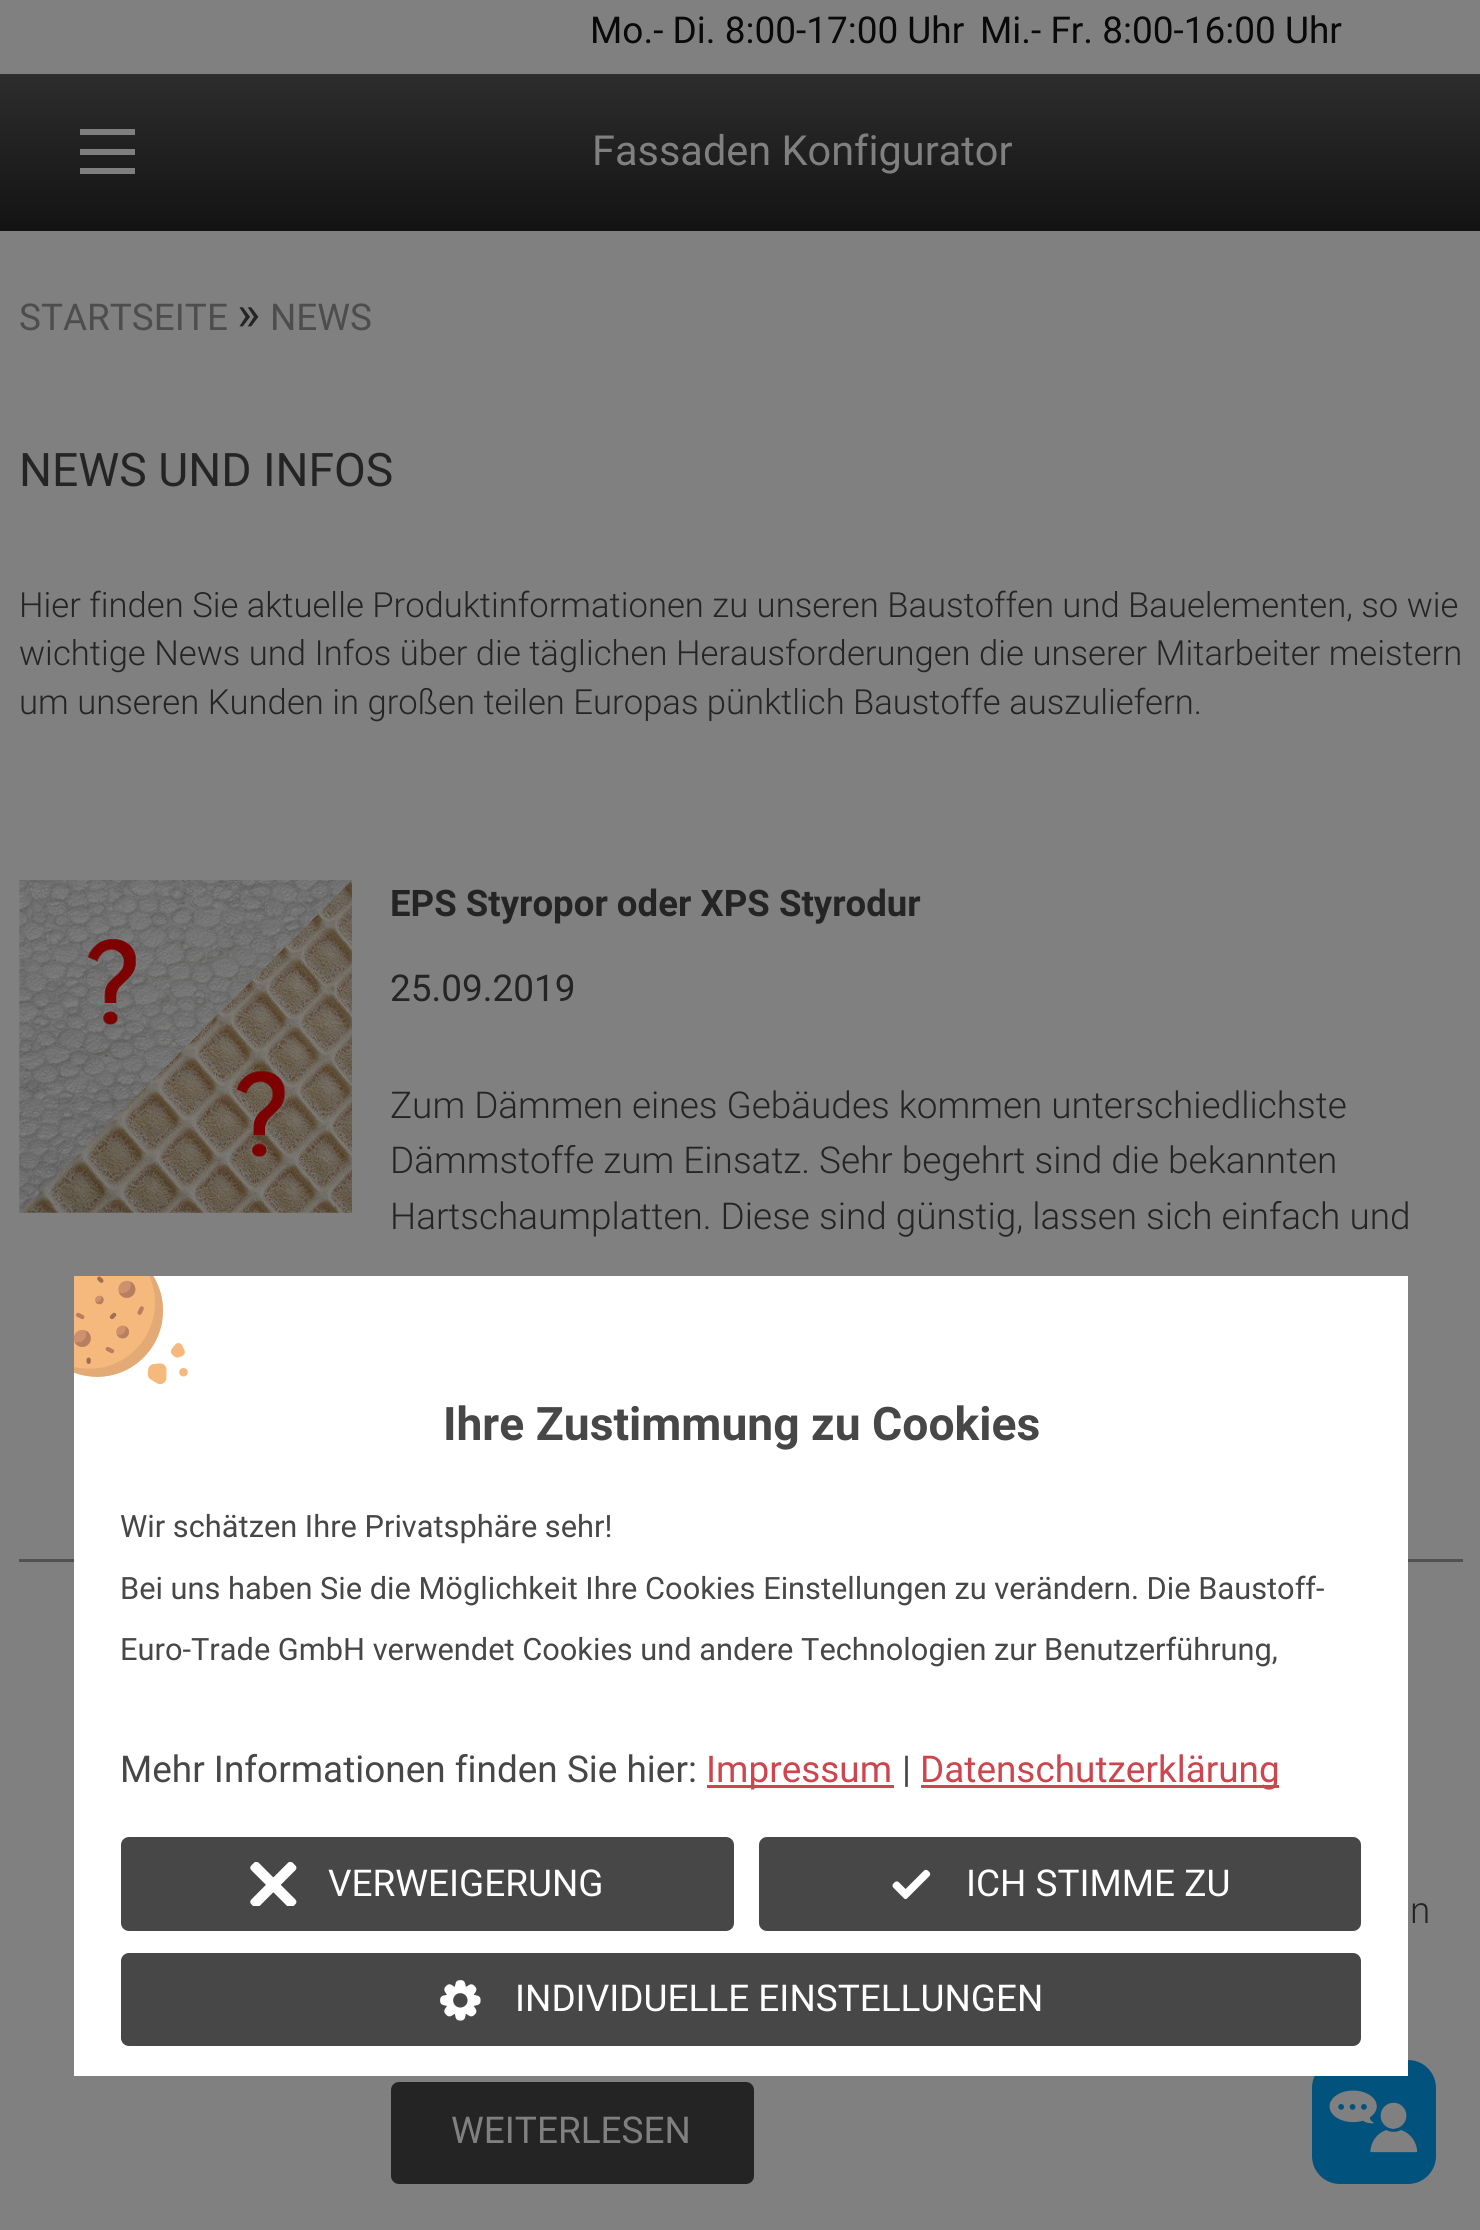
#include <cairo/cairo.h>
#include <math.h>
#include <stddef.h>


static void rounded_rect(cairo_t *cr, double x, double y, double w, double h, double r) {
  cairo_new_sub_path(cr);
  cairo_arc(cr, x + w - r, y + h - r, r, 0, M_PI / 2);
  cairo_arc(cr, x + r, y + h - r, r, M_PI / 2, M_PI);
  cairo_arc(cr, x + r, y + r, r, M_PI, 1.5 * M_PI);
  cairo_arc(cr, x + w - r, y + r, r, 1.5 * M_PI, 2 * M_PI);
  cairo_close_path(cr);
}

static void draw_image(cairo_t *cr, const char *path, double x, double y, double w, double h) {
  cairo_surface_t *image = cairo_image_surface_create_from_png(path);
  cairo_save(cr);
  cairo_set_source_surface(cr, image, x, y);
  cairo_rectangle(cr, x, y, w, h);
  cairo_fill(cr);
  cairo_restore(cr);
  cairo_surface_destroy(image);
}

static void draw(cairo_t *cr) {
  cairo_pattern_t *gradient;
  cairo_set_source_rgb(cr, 128 / 255.0, 128 / 255.0, 128 / 255.0);
  cairo_paint(cr);
  gradient = cairo_pattern_create_linear(741, 74, 741, 231);
  cairo_pattern_add_color_stop_rgba(gradient, 0, 46 / 255.0, 45 / 255.0, 46 / 255.0, 1);
  cairo_pattern_add_color_stop_rgba(gradient, 1, 20 / 255.0, 19 / 255.0, 20 / 255.0, 1);
  cairo_set_source(cr, gradient);
  cairo_pattern_destroy(gradient);
  cairo_rectangle(cr, 0, 74, 1480, 157);
  cairo_fill(cr);
  cairo_set_source_rgb(cr, 127 / 255.0, 127 / 255.0, 127 / 255.0);
  cairo_rectangle(cr, 80, 168, 55, 6);
  cairo_fill(cr);
  cairo_rectangle(cr, 80, 149, 55, 6);
  cairo_fill(cr);
  cairo_rectangle(cr, 80, 129, 55, 6);
  cairo_fill(cr);
  draw_image(cr, "images/1.png", 19, 880, 333, 333);
  cairo_set_source_rgb(cr, 81 / 255.0, 81 / 255.0, 81 / 255.0);
  cairo_rectangle(cr, 19, 1559, 1444, 3);
  cairo_fill(cr);
  cairo_set_source_rgb(cr, 36 / 255.0, 36 / 255.0, 36 / 255.0);
  rounded_rect(cr, 391, 2082, 363, 102, 8);
  cairo_fill(cr);
  cairo_set_source_rgb(cr, 1 / 255.0, 82 / 255.0, 125 / 255.0);
  rounded_rect(cr, 1312, 2060, 124, 124, 28);
  cairo_fill(cr);
  cairo_set_source_rgb(cr, 1, 1, 1);
  cairo_rectangle(cr, 74, 1276, 1334, 800);
  cairo_fill(cr);
  draw_image(cr, "images/2.png", 74, 1276, 114, 109);
  cairo_set_source_rgb(cr, 206 / 255.0, 69 / 255.0, 78 / 255.0);
  cairo_rectangle(cr, 707, 1785, 187, 3);
  cairo_fill(cr);
  cairo_rectangle(cr, 921, 1785, 358, 3);
  cairo_fill(cr);
  cairo_set_source_rgb(cr, 71 / 255.0, 71 / 255.0, 72 / 255.0);
  rounded_rect(cr, 121, 1837, 613, 94, 8);
  cairo_fill(cr);
  draw_image(cr, "images/3.png", 250, 1862, 47, 44);
  rounded_rect(cr, 759, 1837, 602, 94, 8);
  cairo_fill(cr);
  draw_image(cr, "images/4.png", 892, 1869, 39, 31);
  rounded_rect(cr, 121, 1953, 1240, 93, 8);
  cairo_fill(cr);
  draw_image(cr, "images/5.png", 440, 1980, 41, 41);
  draw_image(cr, "images/6.png", 1329, 2090, 89, 63);
  cairo_select_font_face(cr, "Roboto", CAIRO_FONT_SLANT_NORMAL, CAIRO_FONT_WEIGHT_NORMAL);
  cairo_set_font_size(cr, 37);
  cairo_set_source_rgb(cr, 9 / 255.0, 9 / 255.0, 9 / 255.0);
  cairo_move_to(cr, 590, 43);
  cairo_show_text(cr, "Mo.- Di. 8:00-17:00 Uhr");
  cairo_move_to(cr, 980, 43);
  cairo_show_text(cr, "Mi.- Fr. 8:00-16:00 Uhr");
  cairo_set_font_size(cr, 41.5);
  cairo_set_source_rgb(cr, 128 / 255.0, 128 / 255.0, 128 / 255.0);
  cairo_move_to(cr, 592, 165);
  cairo_show_text(cr, "Fassaden Konfigurator");
  cairo_set_font_size(cr, 36.95);
  cairo_set_source_rgb(cr, 77 / 255.0, 77 / 255.0, 77 / 255.0);
  cairo_move_to(cr, 19, 330);
  cairo_show_text(cr, "STARTSEITE");
  cairo_set_font_size(cr, 49);
  cairo_set_source_rgb(cr, 36 / 255.0, 36 / 255.0, 36 / 255.0);
  cairo_move_to(cr, 237, 330);
  cairo_show_text(cr, "»");
  cairo_set_font_size(cr, 36.95);
  cairo_set_source_rgb(cr, 77 / 255.0, 77 / 255.0, 77 / 255.0);
  cairo_move_to(cr, 270, 330);
  cairo_show_text(cr, "NEWS");
  cairo_set_font_size(cr, 46.25);
  cairo_set_source_rgb(cr, 36 / 255.0, 36 / 255.0, 36 / 255.0);
  cairo_move_to(cr, 19, 486);
  cairo_show_text(cr, "NEWS UND INFOS");
  cairo_select_font_face(cr, "Roboto Light", CAIRO_FONT_SLANT_NORMAL, CAIRO_FONT_WEIGHT_NORMAL);
  cairo_set_font_size(cr, 34.65);
  cairo_move_to(cr, 19, 617);
  cairo_show_text(cr, "Hier finden Sie aktuelle Produktinformationen zu unseren Baustoffen und Bauelementen, so wie");
  cairo_move_to(cr, 19, 665);
  cairo_show_text(cr, "wichtige News und Infos über die täglichen Herausforderungen die unserer Mitarbeiter meistern");
  cairo_move_to(cr, 19, 714);
  cairo_show_text(cr, "um unseren Kunden in großen teilen Europas pünktlich");
  cairo_move_to(cr, 853, 714);
  cairo_show_text(cr, "Baustoffe auszuliefern.");
  cairo_select_font_face(cr, "Roboto", CAIRO_FONT_SLANT_NORMAL, CAIRO_FONT_WEIGHT_BOLD);
  cairo_set_font_size(cr, 36.6);
  cairo_move_to(cr, 390, 916);
  cairo_show_text(cr, "EPS Styropor oder XPS Styrodur");
  cairo_select_font_face(cr, "Roboto", CAIRO_FONT_SLANT_NORMAL, CAIRO_FONT_WEIGHT_NORMAL);
  cairo_set_font_size(cr, 36.95);
  cairo_move_to(cr, 390, 1001);
  cairo_show_text(cr, "25.09.2019");
  cairo_select_font_face(cr, "Roboto Light", CAIRO_FONT_SLANT_NORMAL, CAIRO_FONT_WEIGHT_NORMAL);
  cairo_move_to(cr, 390, 1118);
  cairo_show_text(cr, "Zum Dämmen eines Gebäudes kommen unterschiedlichste");
  cairo_move_to(cr, 390, 1173);
  cairo_show_text(cr, "Dämmstoffe zum Einsatz. Sehr begehrt sind die bekannten");
  cairo_move_to(cr, 390, 1229);
  cairo_show_text(cr, "Hartschaumplatten. Diese sind günstig, lassen sich einfach und");
  cairo_move_to(cr, 1410, 1923);
  cairo_show_text(cr, "n");
  cairo_select_font_face(cr, "Roboto", CAIRO_FONT_SLANT_NORMAL, CAIRO_FONT_WEIGHT_NORMAL);
  cairo_set_source_rgb(cr, 128 / 255.0, 128 / 255.0, 128 / 255.0);
  cairo_move_to(cr, 451, 2143);
  cairo_show_text(cr, "WEITERLESEN");
  cairo_select_font_face(cr, "Roboto", CAIRO_FONT_SLANT_NORMAL, CAIRO_FONT_WEIGHT_BOLD);
  cairo_set_font_size(cr, 46.25);
  cairo_set_source_rgb(cr, 71 / 255.0, 71 / 255.0, 72 / 255.0);
  cairo_move_to(cr, 443, 1440);
  cairo_show_text(cr, "Ihre Zustimmung zu Cookies");
  cairo_select_font_face(cr, "Roboto", CAIRO_FONT_SLANT_NORMAL, CAIRO_FONT_WEIGHT_NORMAL);
  cairo_set_font_size(cr, 30.8);
  cairo_move_to(cr, 120, 1537);
  cairo_show_text(cr, "Wir schätzen Ihre Privatsphäre sehr!");
  cairo_move_to(cr, 120, 1599);
  cairo_show_text(cr, "Bei uns haben Sie die Möglichkeit Ihre Cookies Einstellungen zu verändern. Die Baustoff-");
  cairo_move_to(cr, 120, 1660);
  cairo_show_text(cr, "Euro-Trade GmbH verwendet Cookies und andere Technologien zur");
  cairo_move_to(cr, 1044, 1660);
  cairo_show_text(cr, "Benutzerführung,");
  cairo_set_font_size(cr, 36.95);
  cairo_move_to(cr, 120, 1782);
  cairo_show_text(cr, "Mehr Informationen finden Sie hier:");
  cairo_set_source_rgb(cr, 206 / 255.0, 69 / 255.0, 78 / 255.0);
  cairo_move_to(cr, 706, 1782);
  cairo_show_text(cr, "Impressum");
  cairo_set_source_rgb(cr, 71 / 255.0, 71 / 255.0, 72 / 255.0);
  cairo_move_to(cr, 902, 1782);
  cairo_show_text(cr, "|");
  cairo_set_source_rgb(cr, 206 / 255.0, 69 / 255.0, 78 / 255.0);
  cairo_move_to(cr, 920, 1782);
  cairo_show_text(cr, "Datenschutzerklärung");
  cairo_set_source_rgb(cr, 1, 1, 1);
  cairo_move_to(cr, 328, 1896);
  cairo_show_text(cr, "VERWEIGERUNG");
  cairo_move_to(cr, 966, 1896);
  cairo_show_text(cr, "ICH STIMME ZU");
  cairo_move_to(cr, 515, 2011);
  cairo_show_text(cr, "INDIVIDUELLE EINSTELLUNGEN");
}

int main(void) {
  cairo_surface_t *surface = cairo_image_surface_create(CAIRO_FORMAT_RGB24, 1480, 2230);
  cairo_t *cr = cairo_create(surface);
  cairo_font_options_t *options = cairo_font_options_create();
  cairo_font_options_set_hint_metrics(options, CAIRO_HINT_METRICS_OFF);
  cairo_font_options_set_hint_style(options, CAIRO_HINT_STYLE_NONE);
  cairo_set_font_options(cr, options);
  cairo_set_miter_limit(cr, 4);
  draw(cr);
  cairo_surface_write_to_png(surface, "out.png");
  cairo_font_options_destroy(options);
  cairo_destroy(cr);
  cairo_surface_destroy(surface);
  return 0;
}
